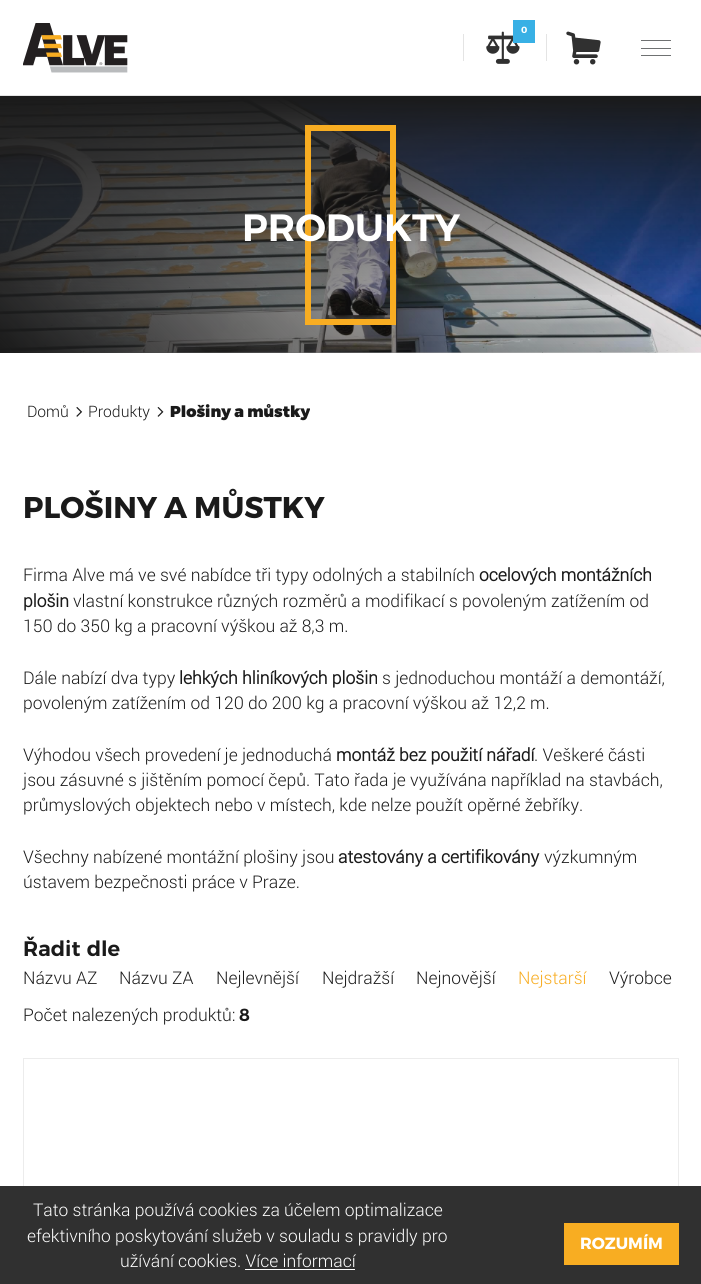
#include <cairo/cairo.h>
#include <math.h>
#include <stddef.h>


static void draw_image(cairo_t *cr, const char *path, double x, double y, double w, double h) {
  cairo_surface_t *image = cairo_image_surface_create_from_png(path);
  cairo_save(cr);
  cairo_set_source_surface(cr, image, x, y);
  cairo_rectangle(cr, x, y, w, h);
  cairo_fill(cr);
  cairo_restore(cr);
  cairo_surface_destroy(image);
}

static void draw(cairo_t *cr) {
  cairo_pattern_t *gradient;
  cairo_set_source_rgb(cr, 1, 1, 1);
  cairo_paint(cr);
  cairo_set_source_rgb(cr, 228 / 255.0, 228 / 255.0, 228 / 255.0);
  cairo_rectangle(cr, 0, 95, 701, 1);
  cairo_fill(cr);
  draw_image(cr, "images/1.png", 23, 23, 105, 50);
  draw_image(cr, "images/2.png", 486, 31, 34, 33);
  cairo_set_source_rgb(cr, 56 / 255.0, 176 / 255.0, 229 / 255.0);
  cairo_rectangle(cr, 513, 20, 22, 23);
  cairo_fill(cr);
  cairo_set_source_rgb(cr, 228 / 255.0, 228 / 255.0, 228 / 255.0);
  cairo_rectangle(cr, 463, 34, 1, 27);
  cairo_fill(cr);
  cairo_rectangle(cr, 546, 34, 1, 27);
  cairo_fill(cr);
  draw_image(cr, "images/3.png", 566, 31, 35, 34);
  cairo_set_source_rgb(cr, 111 / 255.0, 113 / 255.0, 114 / 255.0);
  cairo_rectangle(cr, 641, 40, 30, 1);
  cairo_fill(cr);
  cairo_rectangle(cr, 641, 48, 30, 1);
  cairo_fill(cr);
  cairo_rectangle(cr, 641, 55, 30, 1);
  cairo_fill(cr);
  draw_image(cr, "images/4.png", 0, 97, 701, 256);
  gradient = cairo_pattern_create_linear(111, 464, 590, -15);
  cairo_pattern_add_color_stop_rgba(gradient, 0, 26 / 255.0, 26 / 255.0, 26 / 255.0, 1);
  cairo_pattern_add_color_stop_rgba(gradient, 0.79, 26 / 255.0, 26 / 255.0, 26 / 255.0, 0);
  cairo_pattern_add_color_stop_rgba(gradient, 1, 0, 0, 0, 0);
  cairo_set_source(cr, gradient);
  cairo_pattern_destroy(gradient);
  cairo_rectangle(cr, 0, 97, 701, 256);
  cairo_fill(cr);
  gradient = cairo_pattern_create_linear(351, 96, 351, 353);
  cairo_pattern_add_color_stop_rgba(gradient, 0, 26 / 255.0, 26 / 255.0, 26 / 255.0, 1);
  cairo_pattern_add_color_stop_rgba(gradient, 0.79, 26 / 255.0, 26 / 255.0, 26 / 255.0, 0);
  cairo_pattern_add_color_stop_rgba(gradient, 1, 0, 0, 0, 0);
  cairo_set_source(cr, gradient);
  cairo_pattern_destroy(gradient);
  cairo_rectangle(cr, 0, 96, 701, 199);
  cairo_fill(cr);
  cairo_rectangle(cr, 308, 128, 85, 194);
  cairo_set_source_rgb(cr, 248 / 255.0, 173 / 255.0, 34 / 255.0);
  cairo_set_line_width(cr, 6);
  cairo_stroke(cr);
  draw_image(cr, "images/5.png", 76, 407, 7, 10);
  draw_image(cr, "images/6.png", 157, 407, 7, 10);
  cairo_rectangle(cr, 23.5, 1058.5, 655, 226);
  cairo_set_source_rgb(cr, 236 / 255.0, 236 / 255.0, 236 / 255.0);
  cairo_set_line_width(cr, 1);
  cairo_stroke(cr);
  cairo_set_source_rgb(cr, 48 / 255.0, 48 / 255.0, 48 / 255.0);
  cairo_rectangle(cr, 0, 1186, 701, 98);
  cairo_fill(cr);
  cairo_set_source_rgb(cr, 1, 1, 1);
  cairo_rectangle(cr, 245, 1269, 110, 1);
  cairo_fill(cr);
  cairo_set_source_rgb(cr, 248 / 255.0, 173 / 255.0, 34 / 255.0);
  cairo_rectangle(cr, 564, 1223, 115, 42);
  cairo_fill(cr);
  cairo_select_font_face(cr, "Montserrat", CAIRO_FONT_SLANT_NORMAL, CAIRO_FONT_WEIGHT_BOLD);
  cairo_set_font_size(cr, 9);
  cairo_set_source_rgb(cr, 1, 1, 1);
  cairo_move_to(cr, 521, 33);
  cairo_show_text(cr, "0");
  cairo_select_font_face(cr, "Montserrat SemiBold", CAIRO_FONT_SLANT_NORMAL, CAIRO_FONT_WEIGHT_NORMAL);
  cairo_set_font_size(cr, 38);
  cairo_move_to(cr, 242, 241);
  cairo_show_text(cr, "PRODUKTY");
  cairo_select_font_face(cr, "Roboto Light", CAIRO_FONT_SLANT_NORMAL, CAIRO_FONT_WEIGHT_NORMAL);
  cairo_set_font_size(cr, 15.75);
  cairo_set_source_rgb(cr, 26 / 255.0, 26 / 255.0, 26 / 255.0);
  cairo_move_to(cr, 27, 417);
  cairo_show_text(cr, "Domů");
  cairo_move_to(cr, 88, 417);
  cairo_show_text(cr, "Produkty");
  cairo_select_font_face(cr, "Montserrat Black", CAIRO_FONT_SLANT_NORMAL, CAIRO_FONT_WEIGHT_NORMAL);
  cairo_move_to(cr, 170, 417);
  cairo_show_text(cr, "Plošiny a můstky");
  cairo_select_font_face(cr, "Montserrat", CAIRO_FONT_SLANT_NORMAL, CAIRO_FONT_WEIGHT_BOLD);
  cairo_set_font_size(cr, 30);
  cairo_move_to(cr, 23, 518);
  cairo_show_text(cr, "PLOŠINY A MŮSTKY");
  cairo_select_font_face(cr, "Roboto Light", CAIRO_FONT_SLANT_NORMAL, CAIRO_FONT_WEIGHT_NORMAL);
  cairo_set_font_size(cr, 17.5);
  cairo_move_to(cr, 23, 581);
  cairo_show_text(cr, "Firma Alve má ve své nabídce tři typy odolných a stabilních");
  cairo_select_font_face(cr, "Roboto", CAIRO_FONT_SLANT_NORMAL, CAIRO_FONT_WEIGHT_BOLD);
  cairo_move_to(cr, 479, 581);
  cairo_show_text(cr, "ocelových montážních");
  cairo_move_to(cr, 23, 607);
  cairo_show_text(cr, "plošin");
  cairo_select_font_face(cr, "Roboto Light", CAIRO_FONT_SLANT_NORMAL, CAIRO_FONT_WEIGHT_NORMAL);
  cairo_move_to(cr, 73, 607);
  cairo_show_text(cr, "vlastní konstrukce různých rozměrů a modifikací s povoleným zatížením od");
  cairo_move_to(cr, 23, 632);
  cairo_show_text(cr, "150 do 350 kg a pracovní výškou až 8,3 m.");
  cairo_move_to(cr, 23, 684);
  cairo_show_text(cr, "Dále nabízí dva typy");
  cairo_select_font_face(cr, "Roboto", CAIRO_FONT_SLANT_NORMAL, CAIRO_FONT_WEIGHT_BOLD);
  cairo_move_to(cr, 179, 684);
  cairo_show_text(cr, "lehkých hliníkových plošin");
  cairo_select_font_face(cr, "Roboto Light", CAIRO_FONT_SLANT_NORMAL, CAIRO_FONT_WEIGHT_NORMAL);
  cairo_move_to(cr, 382, 684);
  cairo_show_text(cr, "s jednoduchou montáží a demontáží,");
  cairo_move_to(cr, 23, 709);
  cairo_show_text(cr, "povoleným zatížením od 120 do 200 kg a pracovní výškou až 12,2 m.");
  cairo_move_to(cr, 23, 761);
  cairo_show_text(cr, "Výhodou všech provedení je jednoduchá");
  cairo_select_font_face(cr, "Roboto", CAIRO_FONT_SLANT_NORMAL, CAIRO_FONT_WEIGHT_BOLD);
  cairo_move_to(cr, 336, 761);
  cairo_show_text(cr, "montáž bez použití nářadí");
  cairo_select_font_face(cr, "Roboto Light", CAIRO_FONT_SLANT_NORMAL, CAIRO_FONT_WEIGHT_NORMAL);
  cairo_move_to(cr, 534, 761);
  cairo_show_text(cr, ". Veškeré části");
  cairo_move_to(cr, 23, 786);
  cairo_show_text(cr, "jsou zásuvné s jištěním pomocí čepů. Tato řada je využívána například na stavbách,");
  cairo_move_to(cr, 23, 811);
  cairo_show_text(cr, "průmyslových objektech nebo v místech, kde nelze použít opěrné žebříky.");
  cairo_move_to(cr, 23, 863);
  cairo_show_text(cr, "Všechny nabízené montážní plošiny jsou");
  cairo_select_font_face(cr, "Roboto", CAIRO_FONT_SLANT_NORMAL, CAIRO_FONT_WEIGHT_BOLD);
  cairo_move_to(cr, 338, 863);
  cairo_show_text(cr, "atestovány a certifikovány");
  cairo_select_font_face(cr, "Roboto Light", CAIRO_FONT_SLANT_NORMAL, CAIRO_FONT_WEIGHT_NORMAL);
  cairo_move_to(cr, 544, 863);
  cairo_show_text(cr, "výzkumným");
  cairo_move_to(cr, 23, 888);
  cairo_show_text(cr, "ústavem bezpečnosti práce v Praze.");
  cairo_select_font_face(cr, "Montserrat SemiBold", CAIRO_FONT_SLANT_NORMAL, CAIRO_FONT_WEIGHT_NORMAL);
  cairo_set_font_size(cr, 21);
  cairo_move_to(cr, 23, 956);
  cairo_show_text(cr, "Řadit dle");
  cairo_select_font_face(cr, "Roboto Light", CAIRO_FONT_SLANT_NORMAL, CAIRO_FONT_WEIGHT_NORMAL);
  cairo_set_font_size(cr, 17.5);
  cairo_move_to(cr, 23, 984);
  cairo_show_text(cr, "Názvu AZ");
  cairo_move_to(cr, 119, 984);
  cairo_show_text(cr, "Názvu ZA");
  cairo_move_to(cr, 216, 984);
  cairo_show_text(cr, "Nejlevnější");
  cairo_move_to(cr, 322, 984);
  cairo_show_text(cr, "Nejdražší");
  cairo_move_to(cr, 416, 984);
  cairo_show_text(cr, "Nejnovější");
  cairo_set_source_rgb(cr, 248 / 255.0, 173 / 255.0, 34 / 255.0);
  cairo_move_to(cr, 518, 984);
  cairo_show_text(cr, "Nejstarší");
  cairo_set_source_rgb(cr, 26 / 255.0, 26 / 255.0, 26 / 255.0);
  cairo_move_to(cr, 609, 984);
  cairo_show_text(cr, "Výrobce");
  cairo_move_to(cr, 23, 1021);
  cairo_show_text(cr, "Počet nalezených produktů:");
  cairo_select_font_face(cr, "Montserrat SemiBold", CAIRO_FONT_SLANT_NORMAL, CAIRO_FONT_WEIGHT_NORMAL);
  cairo_move_to(cr, 239, 1021);
  cairo_show_text(cr, "8");
  cairo_select_font_face(cr, "Roboto Light", CAIRO_FONT_SLANT_NORMAL, CAIRO_FONT_WEIGHT_NORMAL);
  cairo_set_source_rgb(cr, 1, 1, 1);
  cairo_move_to(cr, 33, 1216);
  cairo_show_text(cr, "Tato stránka používá cookies za účelem optimalizace");
  cairo_move_to(cr, 27, 1242);
  cairo_show_text(cr, "efektivního poskytování služeb v souladu s pravidly pro");
  cairo_move_to(cr, 120, 1267);
  cairo_show_text(cr, "užívání cookies. Více informací");
  cairo_select_font_face(cr, "Montserrat", CAIRO_FONT_SLANT_NORMAL, CAIRO_FONT_WEIGHT_BOLD);
  cairo_set_font_size(cr, 16.25);
  cairo_move_to(cr, 580, 1249);
  cairo_show_text(cr, "ROZUMÍM");
}

int main(void) {
  cairo_surface_t *surface = cairo_image_surface_create(CAIRO_FORMAT_RGB24, 701, 1284);
  cairo_t *cr = cairo_create(surface);
  cairo_font_options_t *options = cairo_font_options_create();
  cairo_font_options_set_hint_metrics(options, CAIRO_HINT_METRICS_OFF);
  cairo_font_options_set_hint_style(options, CAIRO_HINT_STYLE_NONE);
  cairo_set_font_options(cr, options);
  cairo_set_miter_limit(cr, 4);
  draw(cr);
  cairo_surface_write_to_png(surface, "out.png");
  cairo_font_options_destroy(options);
  cairo_destroy(cr);
  cairo_surface_destroy(surface);
  return 0;
}
